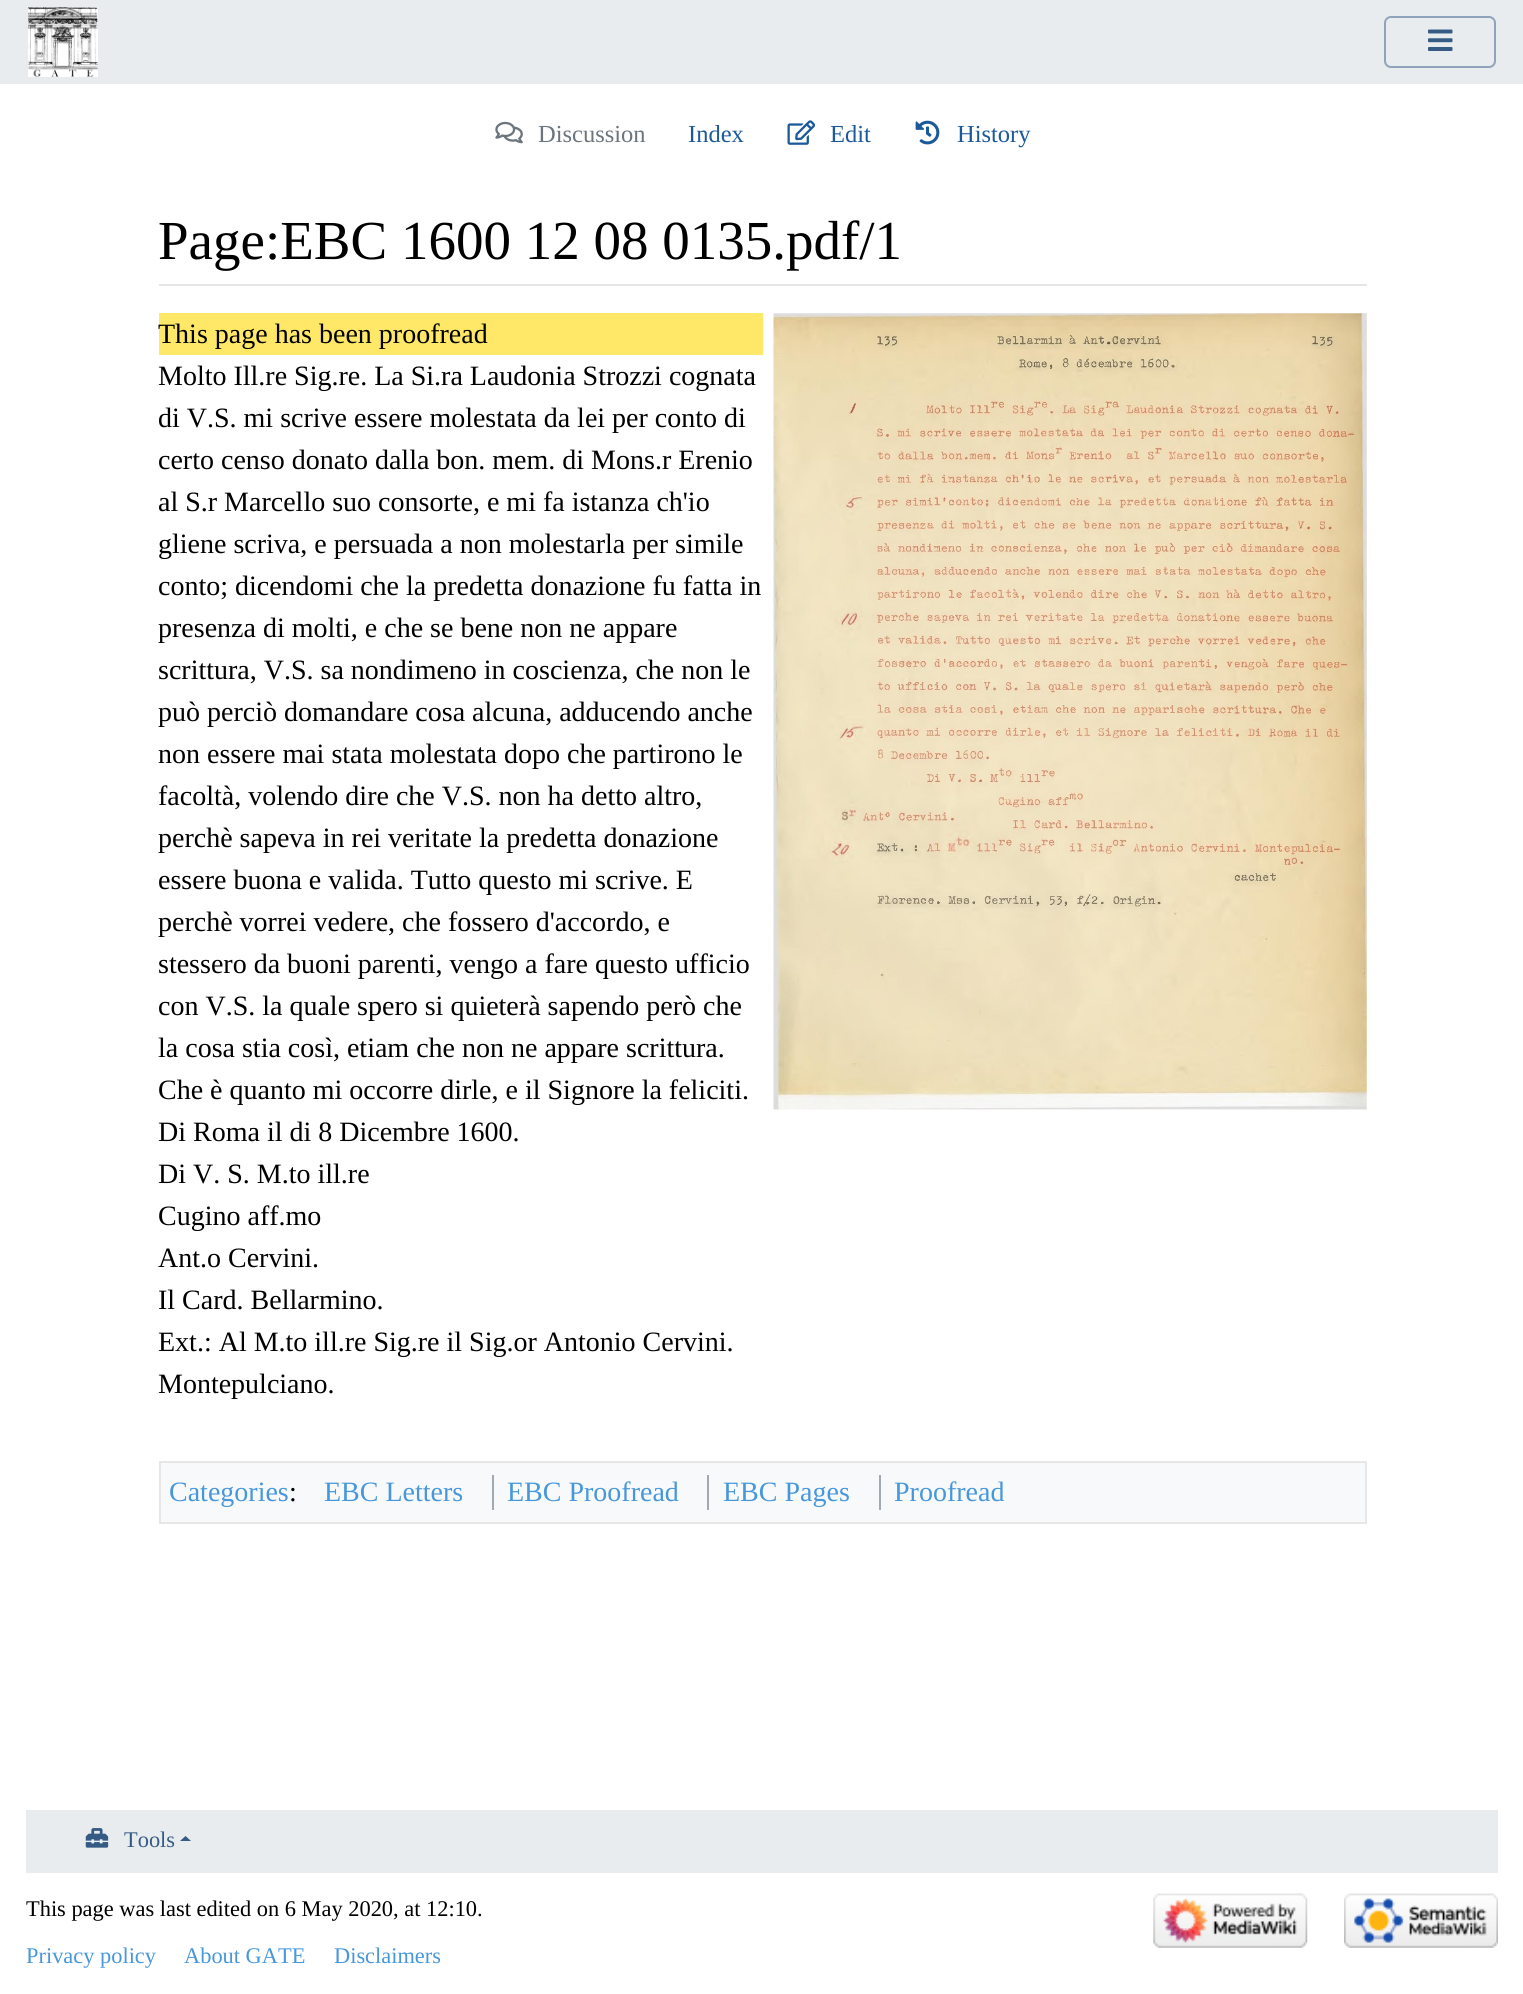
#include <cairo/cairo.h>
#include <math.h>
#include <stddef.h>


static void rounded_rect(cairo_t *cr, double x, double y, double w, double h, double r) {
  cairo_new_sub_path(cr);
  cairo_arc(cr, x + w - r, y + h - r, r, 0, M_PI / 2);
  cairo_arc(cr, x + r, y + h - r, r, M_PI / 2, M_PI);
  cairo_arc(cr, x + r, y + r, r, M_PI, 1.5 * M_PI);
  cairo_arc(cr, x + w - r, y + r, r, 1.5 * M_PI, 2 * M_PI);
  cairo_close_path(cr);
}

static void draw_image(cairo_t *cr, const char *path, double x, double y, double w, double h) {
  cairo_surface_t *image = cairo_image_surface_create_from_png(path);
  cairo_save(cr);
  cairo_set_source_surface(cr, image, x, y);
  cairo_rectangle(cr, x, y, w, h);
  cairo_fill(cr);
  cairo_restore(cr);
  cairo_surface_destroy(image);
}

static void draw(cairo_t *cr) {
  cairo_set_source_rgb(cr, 1, 1, 1);
  cairo_paint(cr);
  cairo_set_source_rgb(cr, 233 / 255.0, 236 / 255.0, 239 / 255.0);
  cairo_rectangle(cr, 0, 0, 1523, 84);
  cairo_fill(cr);
  draw_image(cr, "images/1.png", 28, 7, 70, 70);
  rounded_rect(cr, 1385, 17, 110, 50, 6);
  cairo_set_source_rgb(cr, 143 / 255.0, 164 / 255.0, 186 / 255.0);
  cairo_stroke(cr);
  draw_image(cr, "images/2.png", 1428, 29, 25, 22);
  draw_image(cr, "images/3.png", 495, 121, 28, 23);
  draw_image(cr, "images/4.png", 787, 120, 28, 25);
  draw_image(cr, "images/5.png", 915, 120, 25, 25);
  cairo_set_source_rgb(cr, 230 / 255.0, 230 / 255.0, 230 / 255.0);
  cairo_rectangle(cr, 159, 284, 1208, 2);
  cairo_fill(cr);
  cairo_set_source_rgb(cr, 1, 232 / 255.0, 103 / 255.0);
  cairo_rectangle(cr, 159, 313, 604, 42);
  cairo_fill(cr);
  draw_image(cr, "images/6.png", 773, 313, 594, 797);
  cairo_set_source_rgb(cr, 248 / 255.0, 249 / 255.0, 250 / 255.0);
  cairo_rectangle(cr, 160, 1462, 1206, 61);
  cairo_fill_preserve(cr);
  cairo_set_source_rgb(cr, 231 / 255.0, 231 / 255.0, 231 / 255.0);
  cairo_stroke(cr);
  cairo_set_source_rgb(cr, 162 / 255.0, 169 / 255.0, 177 / 255.0);
  cairo_rectangle(cr, 492, 1475, 2, 35);
  cairo_fill(cr);
  cairo_rectangle(cr, 707, 1475, 2, 35);
  cairo_fill(cr);
  cairo_rectangle(cr, 879, 1475, 2, 35);
  cairo_fill(cr);
  cairo_set_source_rgb(cr, 233 / 255.0, 236 / 255.0, 239 / 255.0);
  cairo_rectangle(cr, 26, 1810, 1472, 63);
  cairo_fill(cr);
  draw_image(cr, "images/7.png", 85, 1828, 24, 20);
  cairo_set_source_rgb(cr, 53 / 255.0, 91 / 255.0, 132 / 255.0);
  cairo_new_path(cr);
  cairo_move_to(cr, 191, 1841);
  cairo_line_to(cr, 180, 1841);
  cairo_line_to(cr, 185.5, 1836);
  cairo_close_path(cr);
  cairo_fill(cr);
  draw_image(cr, "images/8.png", 1153, 1893, 155, 55);
  draw_image(cr, "images/9.png", 1344, 1893, 154, 55);
  cairo_select_font_face(cr, "Liberation Serif", CAIRO_FONT_SLANT_NORMAL, CAIRO_FONT_WEIGHT_NORMAL);
  cairo_set_font_size(cr, 24.5);
  cairo_set_source_rgb(cr, 108 / 255.0, 117 / 255.0, 125 / 255.0);
  cairo_move_to(cr, 538, 142);
  cairo_show_text(cr, "Discussion");
  cairo_set_source_rgb(cr, 27 / 255.0, 89 / 255.0, 155 / 255.0);
  cairo_move_to(cr, 688, 142);
  cairo_show_text(cr, "Index");
  cairo_move_to(cr, 830, 142);
  cairo_show_text(cr, "Edit");
  cairo_move_to(cr, 957, 142);
  cairo_show_text(cr, "History");
  cairo_set_font_size(cr, 55);
  cairo_set_source_rgb(cr, 0, 0, 0);
  cairo_move_to(cr, 158, 259);
  cairo_show_text(cr, "Page:EBC 1600 12 08 0135.pdf/1");
  cairo_set_font_size(cr, 28);
  cairo_move_to(cr, 158, 343);
  cairo_show_text(cr, "This page has been proofread");
  cairo_move_to(cr, 158, 385);
  cairo_show_text(cr, "Molto Ill.re Sig.re. La Si.ra Laudonia Strozzi cognata");
  cairo_move_to(cr, 158, 427);
  cairo_show_text(cr, "di V.S. mi scrive essere molestata da lei per conto di");
  cairo_move_to(cr, 158, 469);
  cairo_show_text(cr, "certo censo donato dalla bon. mem. di Mons.r Erenio");
  cairo_move_to(cr, 158, 511);
  cairo_show_text(cr, "al S.r Marcello suo consorte, e mi fa istanza ch'io");
  cairo_move_to(cr, 158, 553);
  cairo_show_text(cr, "gliene scriva, e persuada a non molestarla per simile");
  cairo_move_to(cr, 158, 595);
  cairo_show_text(cr, "conto; dicendomi che la predetta donazione fu fatta in");
  cairo_move_to(cr, 158, 637);
  cairo_show_text(cr, "presenza di molti, e che se bene non ne appare");
  cairo_move_to(cr, 158, 679);
  cairo_show_text(cr, "scrittura, V.S. sa nondimeno in coscienza, che non le");
  cairo_move_to(cr, 158, 721);
  cairo_show_text(cr, "può perciò domandare cosa alcuna, adducendo anche");
  cairo_move_to(cr, 158, 763);
  cairo_show_text(cr, "non essere mai stata molestata dopo che partirono le");
  cairo_move_to(cr, 158, 805);
  cairo_show_text(cr, "facoltà, volendo dire che V.S. non ha detto altro,");
  cairo_move_to(cr, 158, 847);
  cairo_show_text(cr, "perchè sapeva in rei veritate la predetta donazione");
  cairo_move_to(cr, 158, 889);
  cairo_show_text(cr, "essere buona e valida. Tutto questo mi scrive. E");
  cairo_move_to(cr, 158, 931);
  cairo_show_text(cr, "perchè vorrei vedere, che fossero d'accordo, e");
  cairo_move_to(cr, 158, 973);
  cairo_show_text(cr, "stessero da buoni parenti, vengo a fare questo ufficio");
  cairo_move_to(cr, 158, 1015);
  cairo_show_text(cr, "con V.S. la quale spero si quieterà sapendo però che");
  cairo_move_to(cr, 158, 1057);
  cairo_show_text(cr, "la cosa stia così, etiam che non ne appare scrittura.");
  cairo_move_to(cr, 158, 1099);
  cairo_show_text(cr, "Che è quanto mi occorre dirle, e il Signore la feliciti.");
  cairo_move_to(cr, 158, 1141);
  cairo_show_text(cr, "Di Roma il di 8 Dicembre 1600.");
  cairo_move_to(cr, 158, 1183);
  cairo_show_text(cr, "Di V. S. M.to ill.re");
  cairo_move_to(cr, 158, 1225);
  cairo_show_text(cr, "Cugino aff.mo");
  cairo_move_to(cr, 158, 1267);
  cairo_show_text(cr, "Ant.o Cervini.");
  cairo_move_to(cr, 158, 1309);
  cairo_show_text(cr, "Il Card. Bellarmino.");
  cairo_move_to(cr, 158, 1351);
  cairo_show_text(cr, "Ext.: Al M.to ill.re Sig.re il Sig.or Antonio Cervini.");
  cairo_move_to(cr, 158, 1393);
  cairo_show_text(cr, "Montepulciano.");
  cairo_set_source_rgb(cr, 71 / 255.0, 151 / 255.0, 220 / 255.0);
  cairo_move_to(cr, 169, 1501);
  cairo_show_text(cr, "Categories");
  cairo_set_source_rgb(cr, 0, 0, 0);
  cairo_move_to(cr, 289, 1501);
  cairo_show_text(cr, ":");
  cairo_set_source_rgb(cr, 71 / 255.0, 151 / 255.0, 220 / 255.0);
  cairo_move_to(cr, 324, 1501);
  cairo_show_text(cr, "EBC Letters");
  cairo_move_to(cr, 507, 1501);
  cairo_show_text(cr, "EBC Proofread");
  cairo_move_to(cr, 723, 1501);
  cairo_show_text(cr, "EBC Pages");
  cairo_move_to(cr, 894, 1501);
  cairo_show_text(cr, "Proofread");
  cairo_set_font_size(cr, 22.4);
  cairo_set_source_rgb(cr, 53 / 255.0, 91 / 255.0, 132 / 255.0);
  cairo_move_to(cr, 124, 1847);
  cairo_show_text(cr, "Tools");
  cairo_set_source_rgb(cr, 0, 0, 0);
  cairo_move_to(cr, 26, 1916);
  cairo_show_text(cr, "This page was last edited on 6 May 2020, at 12:10.");
  cairo_set_source_rgb(cr, 71 / 255.0, 151 / 255.0, 220 / 255.0);
  cairo_move_to(cr, 26, 1963);
  cairo_show_text(cr, "Privacy policy");
  cairo_move_to(cr, 184, 1963);
  cairo_show_text(cr, "About GATE");
  cairo_move_to(cr, 334, 1963);
  cairo_show_text(cr, "Disclaimers");
}

int main(void) {
  cairo_surface_t *surface = cairo_image_surface_create(CAIRO_FORMAT_RGB24, 1523, 1994);
  cairo_t *cr = cairo_create(surface);
  cairo_font_options_t *options = cairo_font_options_create();
  cairo_font_options_set_hint_metrics(options, CAIRO_HINT_METRICS_OFF);
  cairo_font_options_set_hint_style(options, CAIRO_HINT_STYLE_NONE);
  cairo_set_font_options(cr, options);
  cairo_set_miter_limit(cr, 4);
  draw(cr);
  cairo_surface_write_to_png(surface, "out.png");
  cairo_font_options_destroy(options);
  cairo_destroy(cr);
  cairo_surface_destroy(surface);
  return 0;
}
